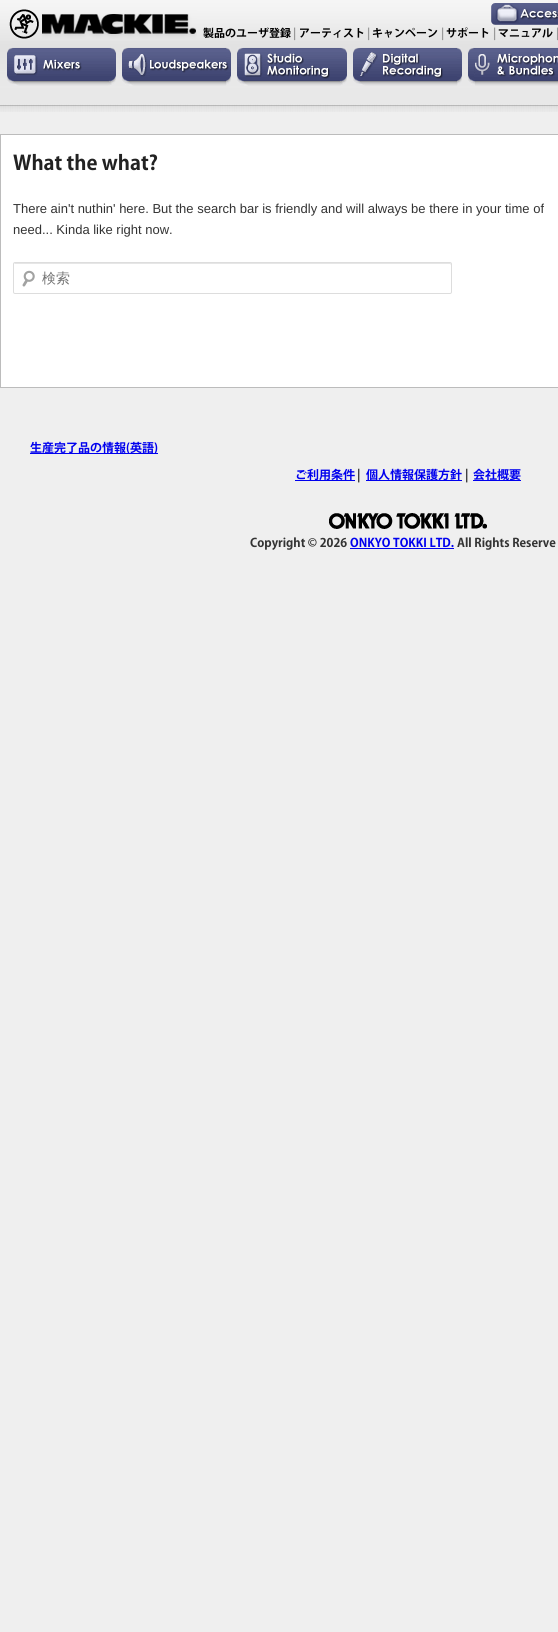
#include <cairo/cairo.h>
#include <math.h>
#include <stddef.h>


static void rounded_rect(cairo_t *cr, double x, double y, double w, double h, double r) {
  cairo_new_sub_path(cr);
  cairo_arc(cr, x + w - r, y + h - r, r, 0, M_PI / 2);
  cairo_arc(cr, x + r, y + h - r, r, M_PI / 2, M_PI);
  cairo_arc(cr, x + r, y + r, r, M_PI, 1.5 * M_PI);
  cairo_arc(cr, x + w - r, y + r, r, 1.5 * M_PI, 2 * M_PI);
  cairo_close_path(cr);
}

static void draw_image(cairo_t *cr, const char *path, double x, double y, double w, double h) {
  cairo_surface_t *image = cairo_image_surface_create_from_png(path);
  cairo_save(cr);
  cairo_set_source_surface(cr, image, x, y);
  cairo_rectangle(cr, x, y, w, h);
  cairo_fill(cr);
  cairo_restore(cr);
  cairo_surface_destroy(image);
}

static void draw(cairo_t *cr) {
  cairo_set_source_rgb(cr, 239 / 255.0, 239 / 255.0, 239 / 255.0);
  cairo_paint(cr);
  draw_image(cr, "images/1.png", 0, 0, 558, 112);
  draw_image(cr, "images/2.png", 9, 9, 188, 30);
  draw_image(cr, "images/3.png", 491, 3, 67, 22);
  draw_image(cr, "images/4.png", 7, 47, 109, 39);
  draw_image(cr, "images/5.png", 122, 47, 109, 39);
  draw_image(cr, "images/6.png", 237, 47, 110, 39);
  draw_image(cr, "images/7.png", 353, 47, 109, 39);
  draw_image(cr, "images/8.png", 468, 47, 90, 39);
  cairo_set_source_rgb(cr, 1, 1, 1);
  cairo_rectangle(cr, 0.5, 134.5, 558, 253);
  cairo_fill_preserve(cr);
  cairo_set_source_rgb(cr, 188 / 255.0, 188 / 255.0, 188 / 255.0);
  cairo_set_line_width(cr, 1);
  cairo_stroke(cr);
  draw_image(cr, "images/9.png", 22, 270, 13, 17);
  cairo_set_source_rgb(cr, 230 / 255.0, 230 / 255.0, 230 / 255.0);
  cairo_new_path(cr);
  cairo_move_to(cr, 15, 263);
  cairo_line_to(cr, 14, 264);
  cairo_line_to(cr, 450, 264);
  cairo_line_to(cr, 451, 265);
  cairo_curve_to(cr, 451, 264, 451, 263, 450, 263);
  cairo_close_path(cr);
  cairo_fill(cr);
  rounded_rect(cr, 13.5, 262.5, 438, 31, 1.5);
  cairo_set_source_rgb(cr, 221 / 255.0, 221 / 255.0, 221 / 255.0);
  cairo_stroke(cr);
  cairo_set_source_rgb(cr, 0, 0, 238 / 255.0);
  cairo_rectangle(cr, 30, 453, 128, 1);
  cairo_fill(cr);
  cairo_rectangle(cr, 295, 480, 60, 1);
  cairo_fill(cr);
  cairo_rectangle(cr, 366, 480, 96, 1);
  cairo_fill(cr);
  cairo_rectangle(cr, 473, 480, 48, 1);
  cairo_fill(cr);
  draw_image(cr, "images/10.png", 329, 513, 158, 16);
  cairo_rectangle(cr, 350, 548, 104, 1);
  cairo_fill(cr);
  cairo_select_font_face(cr, "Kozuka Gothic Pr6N", CAIRO_FONT_SLANT_NORMAL, CAIRO_FONT_WEIGHT_BOLD);
  cairo_set_font_size(cr, 11);
  cairo_set_source_rgb(cr, 0, 0, 0);
  cairo_move_to(cr, 203, 37);
  cairo_show_text(cr, "製品のユーザ登録");
  cairo_set_source_rgb(cr, 153 / 255.0, 153 / 255.0, 153 / 255.0);
  cairo_move_to(cr, 293, 37);
  cairo_show_text(cr, "|");
  cairo_set_source_rgb(cr, 0, 0, 0);
  cairo_move_to(cr, 299, 37);
  cairo_show_text(cr, "アーティスト");
  cairo_set_source_rgb(cr, 153 / 255.0, 153 / 255.0, 153 / 255.0);
  cairo_move_to(cr, 367, 37);
  cairo_show_text(cr, "|");
  cairo_set_source_rgb(cr, 0, 0, 0);
  cairo_move_to(cr, 372, 37);
  cairo_show_text(cr, "キャンペーン");
  cairo_set_source_rgb(cr, 153 / 255.0, 153 / 255.0, 153 / 255.0);
  cairo_move_to(cr, 441, 37);
  cairo_show_text(cr, "|");
  cairo_set_source_rgb(cr, 0, 0, 0);
  cairo_move_to(cr, 446, 37);
  cairo_show_text(cr, "サポート");
  cairo_set_source_rgb(cr, 153 / 255.0, 153 / 255.0, 153 / 255.0);
  cairo_move_to(cr, 493, 37);
  cairo_show_text(cr, "|");
  cairo_set_source_rgb(cr, 0, 0, 0);
  cairo_move_to(cr, 498, 37);
  cairo_show_text(cr, "マニュアル");
  cairo_set_source_rgb(cr, 153 / 255.0, 153 / 255.0, 153 / 255.0);
  cairo_move_to(cr, 556, 37);
  cairo_show_text(cr, "|");
  cairo_set_font_size(cr, 20);
  cairo_set_source_rgb(cr, 34 / 255.0, 34 / 255.0, 34 / 255.0);
  cairo_move_to(cr, 13, 170);
  cairo_show_text(cr, "What the what?");
  cairo_select_font_face(cr, "Liberation Sans", CAIRO_FONT_SLANT_NORMAL, CAIRO_FONT_WEIGHT_NORMAL);
  cairo_set_font_size(cr, 13);
  cairo_set_source_rgb(cr, 51 / 255.0, 51 / 255.0, 51 / 255.0);
  cairo_move_to(cr, 13, 213);
  cairo_show_text(cr, "There ain't nuthin' here. But the search bar is friendly and will always be there in your time of");
  cairo_move_to(cr, 13, 234);
  cairo_show_text(cr, "need... Kinda like right now.");
  cairo_select_font_face(cr, "WenQuanYi Zen Hei Medium", CAIRO_FONT_SLANT_NORMAL, CAIRO_FONT_WEIGHT_NORMAL);
  cairo_set_font_size(cr, 14);
  cairo_set_source_rgb(cr, 117 / 255.0, 117 / 255.0, 117 / 255.0);
  cairo_move_to(cr, 42, 283);
  cairo_show_text(cr, "検索");
  cairo_select_font_face(cr, "Kozuka Gothic Pr6N", CAIRO_FONT_SLANT_NORMAL, CAIRO_FONT_WEIGHT_BOLD);
  cairo_set_font_size(cr, 12);
  cairo_set_source_rgb(cr, 0, 0, 238 / 255.0);
  cairo_move_to(cr, 30, 452);
  cairo_show_text(cr, "生産完了品の情報(英語)");
  cairo_move_to(cr, 295, 479);
  cairo_show_text(cr, "ご利用条件");
  cairo_set_source_rgb(cr, 51 / 255.0, 51 / 255.0, 51 / 255.0);
  cairo_move_to(cr, 357, 479);
  cairo_show_text(cr, "|");
  cairo_set_source_rgb(cr, 0, 0, 238 / 255.0);
  cairo_move_to(cr, 366, 479);
  cairo_show_text(cr, "個人情報保護方針");
  cairo_set_source_rgb(cr, 51 / 255.0, 51 / 255.0, 51 / 255.0);
  cairo_move_to(cr, 465, 479);
  cairo_show_text(cr, "|");
  cairo_set_source_rgb(cr, 0, 0, 238 / 255.0);
  cairo_move_to(cr, 473, 479);
  cairo_show_text(cr, "会社概要");
  cairo_set_source_rgb(cr, 51 / 255.0, 51 / 255.0, 51 / 255.0);
  cairo_move_to(cr, 250, 547);
  cairo_show_text(cr, "Copyright © 2026");
  cairo_set_source_rgb(cr, 0, 0, 238 / 255.0);
  cairo_move_to(cr, 350, 547);
  cairo_show_text(cr, "ONKYO TOKKI LTD.");
  cairo_set_source_rgb(cr, 51 / 255.0, 51 / 255.0, 51 / 255.0);
  cairo_move_to(cr, 457, 547);
  cairo_show_text(cr, "All Rights Reserve");
}

int main(void) {
  cairo_surface_t *surface = cairo_image_surface_create(CAIRO_FORMAT_RGB24, 558, 1632);
  cairo_t *cr = cairo_create(surface);
  cairo_font_options_t *options = cairo_font_options_create();
  cairo_font_options_set_hint_metrics(options, CAIRO_HINT_METRICS_OFF);
  cairo_font_options_set_hint_style(options, CAIRO_HINT_STYLE_NONE);
  cairo_set_font_options(cr, options);
  cairo_set_miter_limit(cr, 4);
  draw(cr);
  cairo_surface_write_to_png(surface, "out.png");
  cairo_font_options_destroy(options);
  cairo_destroy(cr);
  cairo_surface_destroy(surface);
  return 0;
}
